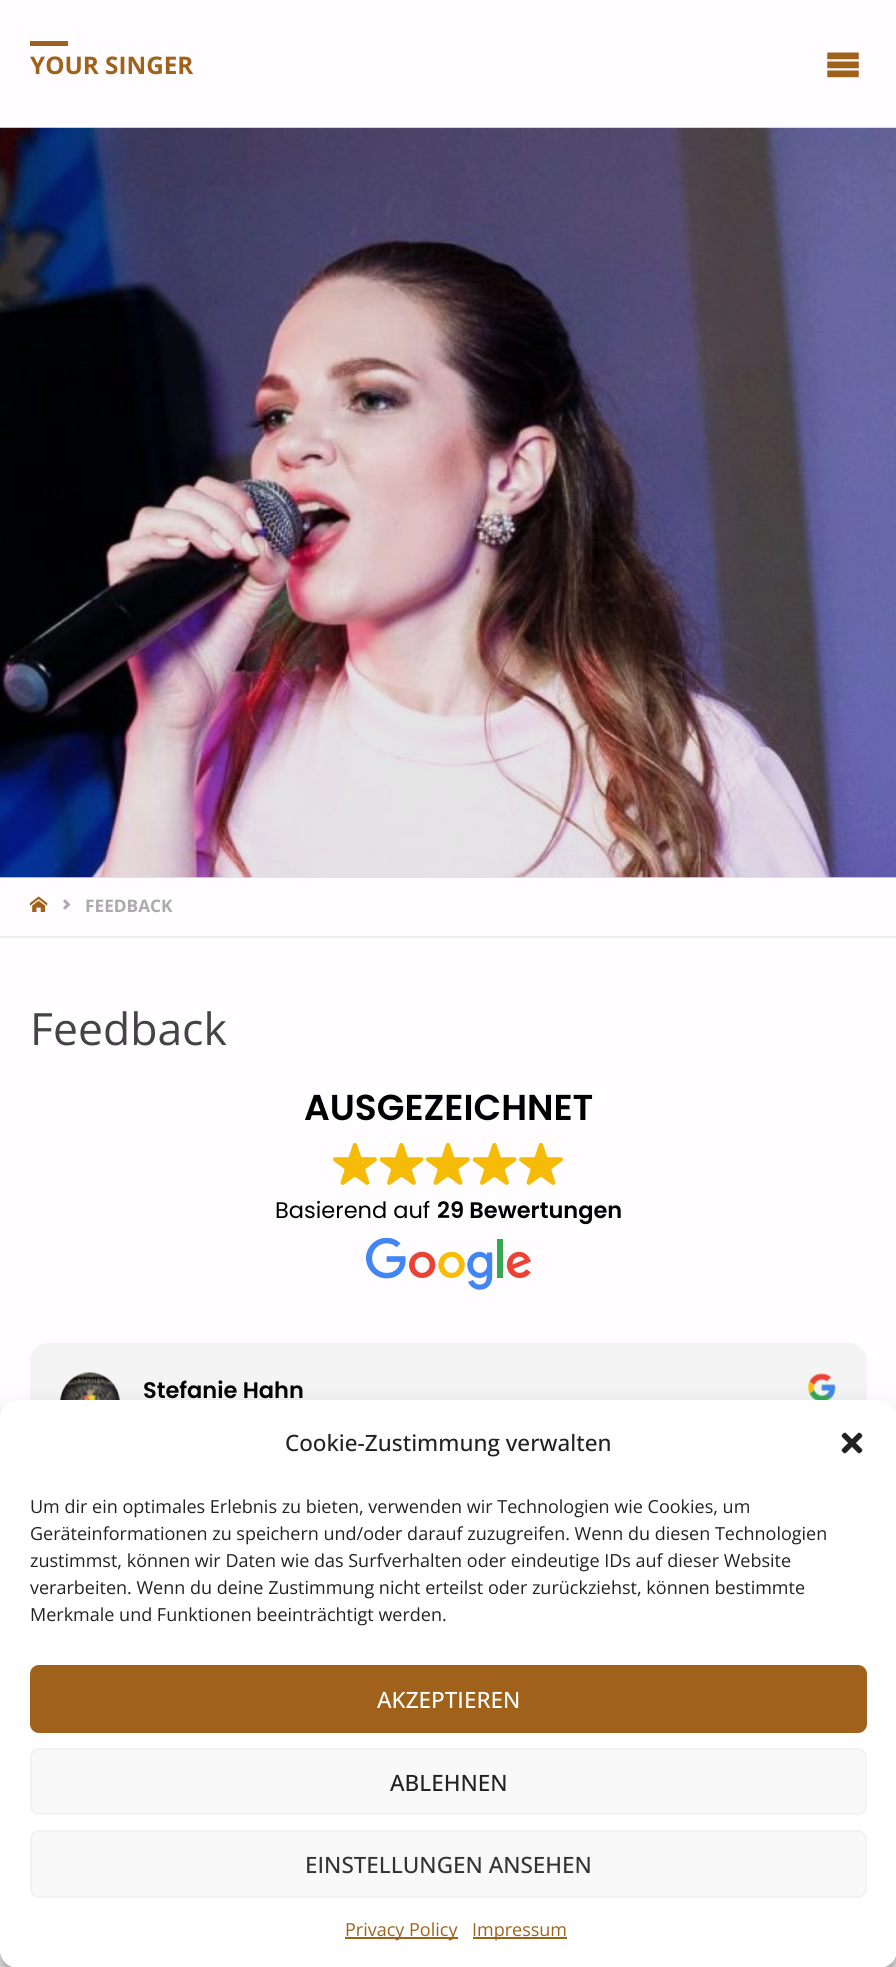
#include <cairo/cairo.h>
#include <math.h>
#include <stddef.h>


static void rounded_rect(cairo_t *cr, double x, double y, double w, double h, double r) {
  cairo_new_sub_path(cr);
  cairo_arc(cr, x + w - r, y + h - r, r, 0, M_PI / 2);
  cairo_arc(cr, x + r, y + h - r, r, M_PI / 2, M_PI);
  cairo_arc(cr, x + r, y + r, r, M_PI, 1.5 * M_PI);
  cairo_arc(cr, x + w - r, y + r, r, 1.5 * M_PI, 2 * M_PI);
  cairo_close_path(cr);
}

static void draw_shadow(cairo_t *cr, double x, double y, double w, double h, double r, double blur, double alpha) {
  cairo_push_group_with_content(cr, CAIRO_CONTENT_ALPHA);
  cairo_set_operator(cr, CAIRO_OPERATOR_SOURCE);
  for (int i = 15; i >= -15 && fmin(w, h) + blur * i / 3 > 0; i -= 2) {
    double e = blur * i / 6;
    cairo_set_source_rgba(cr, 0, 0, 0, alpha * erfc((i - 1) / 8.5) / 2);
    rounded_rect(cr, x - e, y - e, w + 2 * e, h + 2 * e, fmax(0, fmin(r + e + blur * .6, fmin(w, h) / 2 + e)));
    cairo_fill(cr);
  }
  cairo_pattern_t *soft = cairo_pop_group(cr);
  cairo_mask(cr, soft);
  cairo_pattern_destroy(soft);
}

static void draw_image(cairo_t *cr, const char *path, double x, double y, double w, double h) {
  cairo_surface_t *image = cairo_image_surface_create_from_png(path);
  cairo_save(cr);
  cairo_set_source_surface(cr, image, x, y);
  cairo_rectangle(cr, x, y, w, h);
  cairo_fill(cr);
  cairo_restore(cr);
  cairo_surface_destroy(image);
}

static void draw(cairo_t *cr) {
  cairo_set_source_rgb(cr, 1, 253 / 255.0, 1);
  cairo_paint(cr);
  cairo_set_source_rgb(cr, 230 / 255.0, 228 / 255.0, 230 / 255.0);
  cairo_rectangle(cr, 0, 877, 896, 1);
  cairo_fill(cr);
  cairo_set_source_rgb(cr, 160 / 255.0, 98 / 255.0, 27 / 255.0);
  cairo_rectangle(cr, 30, 41, 38, 5);
  cairo_fill(cr);
  draw_image(cr, "images/1.png", 827, 52, 32, 26);
  draw_image(cr, "images/2.png", 0, 127, 896, 751);
  cairo_set_source_rgb(cr, 238 / 255.0, 236 / 255.0, 238 / 255.0);
  cairo_rectangle(cr, 0, 936, 896, 2);
  cairo_fill(cr);
  draw_image(cr, "images/3.png", 30, 896, 18, 16);
  draw_image(cr, "images/4.png", 63, 899, 8, 11);
  draw_image(cr, "images/5.png", 333, 1142, 44, 43);
  draw_image(cr, "images/6.png", 380, 1142, 44, 43);
  draw_image(cr, "images/5.png", 426, 1142, 44, 43);
  draw_image(cr, "images/6.png", 473, 1142, 44, 43);
  draw_image(cr, "images/5.png", 519, 1142, 44, 43);
  draw_image(cr, "images/7.png", 366, 1238, 165, 52);
  cairo_set_source_rgb(cr, 244 / 255.0, 244 / 255.0, 244 / 255.0);
  rounded_rect(cr, 30, 1343, 837, 351, 18);
  cairo_fill(cr);
  draw_image(cr, "images/8.png", 60, 1372, 60, 28);
  draw_image(cr, "images/9.png", 807, 1373, 29, 27);
  cairo_set_source_rgb(cr, 247 / 255.0, 248 / 255.0, 249 / 255.0);
  cairo_rectangle(cr, 0, 1950, 896, 17);
  cairo_fill(cr);
  cairo_set_source_rgb(cr, 0, 0, 0);
  draw_shadow(cr, 0, 1409, 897, 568, 18, 4.5, 0.23);
  draw_shadow(cr, 0, 1415, 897, 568, 18, 15, 0.19);
  cairo_set_source_rgb(cr, 1, 1, 1);
  rounded_rect(cr, 0, 1400, 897, 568, 18);
  cairo_fill(cr);
  draw_image(cr, "images/10.png", 841, 1432, 22, 22);
  cairo_set_source_rgb(cr, 160 / 255.0, 98 / 255.0, 27 / 255.0);
  rounded_rect(cr, 31, 1666, 835, 66, 8);
  cairo_fill_preserve(cr);
  cairo_stroke(cr);
  cairo_set_source_rgb(cr, 249 / 255.0, 249 / 255.0, 249 / 255.0);
  rounded_rect(cr, 31, 1749, 835, 65, 8);
  cairo_fill_preserve(cr);
  cairo_set_source_rgb(cr, 242 / 255.0, 242 / 255.0, 242 / 255.0);
  cairo_stroke(cr);
  cairo_set_source_rgb(cr, 249 / 255.0, 249 / 255.0, 249 / 255.0);
  rounded_rect(cr, 31, 1831, 835, 66, 8);
  cairo_fill_preserve(cr);
  cairo_set_source_rgb(cr, 242 / 255.0, 242 / 255.0, 242 / 255.0);
  cairo_stroke(cr);
  cairo_set_source_rgb(cr, 160 / 255.0, 98 / 255.0, 27 / 255.0);
  cairo_rectangle(cr, 345, 1937, 113, 2);
  cairo_fill(cr);
  cairo_rectangle(cr, 473, 1937, 94, 2);
  cairo_fill(cr);
  cairo_select_font_face(cr, "Open Sans", CAIRO_FONT_SLANT_NORMAL, CAIRO_FONT_WEIGHT_BOLD);
  cairo_set_font_size(cr, 24.25);
  cairo_move_to(cr, 30, 74);
  cairo_show_text(cr, "YOUR SINGER");
  cairo_set_font_size(cr, 17.25);
  cairo_set_source_rgb(cr, 171 / 255.0, 171 / 255.0, 171 / 255.0);
  cairo_move_to(cr, 85, 912);
  cairo_show_text(cr, "FEEDBACK");
  cairo_select_font_face(cr, "Open Sans", CAIRO_FONT_SLANT_NORMAL, CAIRO_FONT_WEIGHT_NORMAL);
  cairo_set_font_size(cr, 44.5);
  cairo_set_source_rgb(cr, 68 / 255.0, 68 / 255.0, 68 / 255.0);
  cairo_move_to(cr, 30, 1045);
  cairo_show_text(cr, "Feedback");
  cairo_select_font_face(cr, "Poppins SemiBold", CAIRO_FONT_SLANT_NORMAL, CAIRO_FONT_WEIGHT_NORMAL);
  cairo_set_font_size(cr, 36);
  cairo_set_source_rgb(cr, 0, 0, 0);
  cairo_move_to(cr, 304, 1120);
  cairo_show_text(cr, "AUSGEZEICHNET");
  cairo_select_font_face(cr, "Poppins", CAIRO_FONT_SLANT_NORMAL, CAIRO_FONT_WEIGHT_NORMAL);
  cairo_set_font_size(cr, 22.5);
  cairo_move_to(cr, 275, 1218);
  cairo_show_text(cr, "Basierend auf");
  cairo_select_font_face(cr, "Poppins SemiBold", CAIRO_FONT_SLANT_NORMAL, CAIRO_FONT_WEIGHT_NORMAL);
  cairo_move_to(cr, 437, 1218);
  cairo_show_text(cr, "29 Bewertungen");
  cairo_move_to(cr, 143, 1398);
  cairo_show_text(cr, "Stefanie Hahn");
  cairo_select_font_face(cr, "Open Sans Medium", CAIRO_FONT_SLANT_NORMAL, CAIRO_FONT_WEIGHT_NORMAL);
  cairo_set_source_rgb(cr, 34 / 255.0, 34 / 255.0, 34 / 255.0);
  cairo_move_to(cr, 285, 1451);
  cairo_show_text(cr, "Cookie-Zustimmung verwalten");
  cairo_select_font_face(cr, "Open Sans", CAIRO_FONT_SLANT_NORMAL, CAIRO_FONT_WEIGHT_NORMAL);
  cairo_set_font_size(cr, 18);
  cairo_move_to(cr, 30, 1513);
  cairo_show_text(cr, "Um dir ein optimales Erlebnis zu bieten, verwenden wir Technologien wie Cookies, um");
  cairo_move_to(cr, 30, 1540);
  cairo_show_text(cr, "Geräteinformationen zu speichern und/oder darauf zuzugreifen. Wenn du diesen Technologien");
  cairo_move_to(cr, 30, 1567);
  cairo_show_text(cr, "zustimmst, können wir Daten wie das Surfverhalten oder eindeutige IDs auf dieser Website");
  cairo_move_to(cr, 30, 1594);
  cairo_show_text(cr, "verarbeiten. Wenn du deine Zustimmung nicht erteilst oder zurückziehst, können bestimmte");
  cairo_move_to(cr, 30, 1621);
  cairo_show_text(cr, "Merkmale und Funktionen beeinträchtigt werden.");
  cairo_select_font_face(cr, "Open Sans Medium", CAIRO_FONT_SLANT_NORMAL, CAIRO_FONT_WEIGHT_NORMAL);
  cairo_set_font_size(cr, 22.5);
  cairo_set_source_rgb(cr, 1, 1, 1);
  cairo_move_to(cr, 377, 1708);
  cairo_show_text(cr, "AKZEPTIEREN");
  cairo_set_source_rgb(cr, 34 / 255.0, 34 / 255.0, 34 / 255.0);
  cairo_move_to(cr, 390, 1791);
  cairo_show_text(cr, "ABLEHNEN");
  cairo_set_source_rgb(cr, 51 / 255.0, 51 / 255.0, 51 / 255.0);
  cairo_move_to(cr, 305, 1873);
  cairo_show_text(cr, "EINSTELLUNGEN ANSEHEN");
  cairo_select_font_face(cr, "Open Sans", CAIRO_FONT_SLANT_NORMAL, CAIRO_FONT_WEIGHT_NORMAL);
  cairo_set_font_size(cr, 18);
  cairo_set_source_rgb(cr, 160 / 255.0, 98 / 255.0, 27 / 255.0);
  cairo_move_to(cr, 345, 1936);
  cairo_show_text(cr, "Privacy Policy");
  cairo_move_to(cr, 472, 1936);
  cairo_show_text(cr, "Impressum");
}

int main(void) {
  cairo_surface_t *surface = cairo_image_surface_create(CAIRO_FORMAT_RGB24, 896, 1967);
  cairo_t *cr = cairo_create(surface);
  cairo_font_options_t *options = cairo_font_options_create();
  cairo_font_options_set_hint_metrics(options, CAIRO_HINT_METRICS_OFF);
  cairo_font_options_set_hint_style(options, CAIRO_HINT_STYLE_NONE);
  cairo_set_font_options(cr, options);
  cairo_set_miter_limit(cr, 4);
  draw(cr);
  cairo_surface_write_to_png(surface, "out.png");
  cairo_font_options_destroy(options);
  cairo_destroy(cr);
  cairo_surface_destroy(surface);
  return 0;
}
